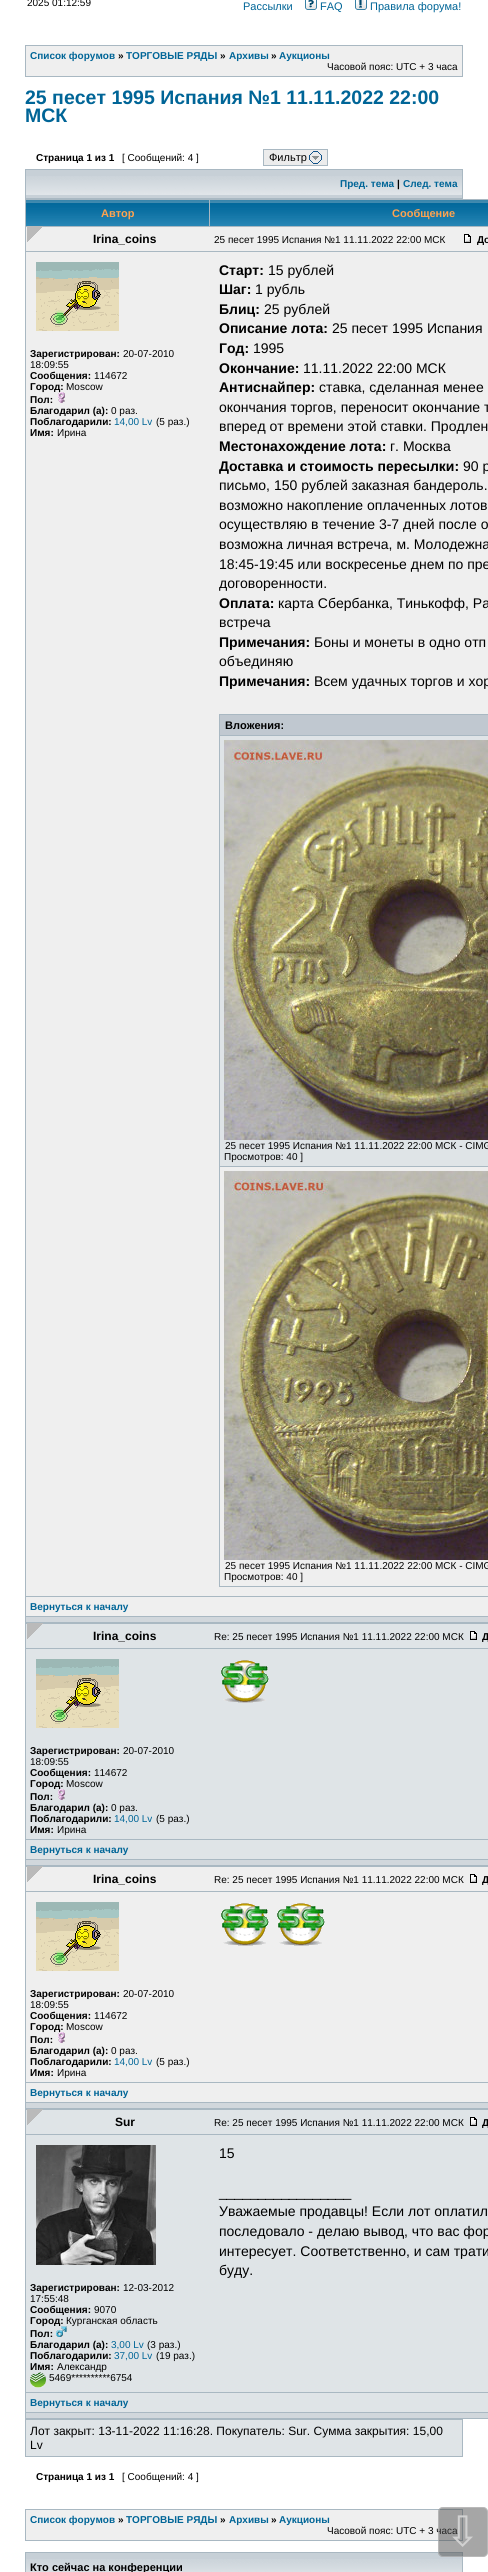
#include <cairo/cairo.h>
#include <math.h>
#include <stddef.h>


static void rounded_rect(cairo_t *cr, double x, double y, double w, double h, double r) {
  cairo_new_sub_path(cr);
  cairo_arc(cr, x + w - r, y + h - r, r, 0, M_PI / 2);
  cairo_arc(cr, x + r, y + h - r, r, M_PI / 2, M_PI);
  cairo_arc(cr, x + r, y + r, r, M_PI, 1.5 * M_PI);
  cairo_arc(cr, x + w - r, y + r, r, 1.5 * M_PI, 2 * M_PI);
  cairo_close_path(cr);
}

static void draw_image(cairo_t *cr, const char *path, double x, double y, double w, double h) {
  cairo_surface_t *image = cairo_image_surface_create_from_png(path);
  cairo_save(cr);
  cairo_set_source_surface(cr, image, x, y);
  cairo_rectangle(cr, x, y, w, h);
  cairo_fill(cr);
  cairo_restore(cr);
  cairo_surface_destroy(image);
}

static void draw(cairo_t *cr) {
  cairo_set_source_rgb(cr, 1, 1, 1);
  cairo_paint(cr);
  draw_image(cr, "images/1.png", 305, 0, 12, 10);
  draw_image(cr, "images/2.png", 355, 0, 12, 10);
  cairo_set_source_rgb(cr, 169 / 255.0, 184 / 255.0, 194 / 255.0);
  cairo_rectangle(cr, 25, 45, 438, 32);
  cairo_fill(cr);
  cairo_set_source_rgb(cr, 239 / 255.0, 239 / 255.0, 239 / 255.0);
  cairo_rectangle(cr, 26, 46, 436, 30);
  cairo_fill(cr);
  cairo_set_source_rgb(cr, 236 / 255.0, 236 / 255.0, 236 / 255.0);
  cairo_rectangle(cr, 263.5, 149.5, 64, 16);
  cairo_fill_preserve(cr);
  cairo_set_source_rgb(cr, 169 / 255.0, 184 / 255.0, 194 / 255.0);
  cairo_set_line_width(cr, 1);
  cairo_stroke(cr);
  draw_image(cr, "images/3.png", 309, 151, 13, 13);
  cairo_rectangle(cr, 25, 169, 438, 30);
  cairo_fill(cr);
  cairo_set_source_rgb(cr, 199 / 255.0, 208 / 255.0, 215 / 255.0);
  cairo_rectangle(cr, 26, 170, 436, 28);
  cairo_fill(cr);
  draw_image(cr, "images/4.png", 26, 176, 436, 19);
  cairo_set_source_rgb(cr, 169 / 255.0, 184 / 255.0, 194 / 255.0);
  cairo_rectangle(cr, 25, 199, 463, 2220);
  cairo_fill(cr);
  draw_image(cr, "images/5.png", 26, 200, 183, 26);
  draw_image(cr, "images/6.png", 210, 200, 278, 26);
  cairo_set_source_rgb(cr, 239 / 255.0, 239 / 255.0, 239 / 255.0);
  cairo_rectangle(cr, 26, 227, 462, 24);
  cairo_fill(cr);
  draw_image(cr, "images/7.png", 27, 226, 16, 16);
  draw_image(cr, "images/8.png", 464, 234, 7, 9);
  cairo_rectangle(cr, 26, 252, 462, 1344);
  cairo_fill(cr);
  draw_image(cr, "images/9.png", 36, 262, 83, 69);
  cairo_set_source_rgb(cr, 169 / 255.0, 184 / 255.0, 194 / 255.0);
  cairo_rectangle(cr, 219, 714, 269, 873);
  cairo_fill(cr);
  cairo_set_source_rgb(cr, 192 / 255.0, 200 / 255.0, 208 / 255.0);
  cairo_rectangle(cr, 220, 715, 268, 20);
  cairo_fill(cr);
  cairo_set_source_rgb(cr, 223 / 255.0, 228 / 255.0, 231 / 255.0);
  cairo_rectangle(cr, 220, 736, 268, 430);
  cairo_fill(cr);
  draw_image(cr, "images/11.png", 224, 740, 264, 400);
  cairo_set_source_rgb(cr, 239 / 255.0, 239 / 255.0, 239 / 255.0);
  cairo_rectangle(cr, 220, 1167, 268, 419);
  cairo_fill(cr);
  draw_image(cr, "images/12.png", 224, 1171, 264, 389);
  cairo_rectangle(cr, 26, 1597, 462, 19);
  cairo_fill(cr);
  cairo_set_source_rgb(cr, 209 / 255.0, 215 / 255.0, 220 / 255.0);
  cairo_rectangle(cr, 26, 1617, 462, 5);
  cairo_fill(cr);
  cairo_set_source_rgb(cr, 223 / 255.0, 228 / 255.0, 231 / 255.0);
  cairo_rectangle(cr, 26, 1624, 462, 24);
  cairo_fill(cr);
  draw_image(cr, "images/13.png", 27, 1623, 16, 16);
  draw_image(cr, "images/14.png", 470, 1631, 7, 9);
  cairo_rectangle(cr, 26, 1649, 462, 190);
  cairo_fill(cr);
  draw_image(cr, "images/15.png", 221, 1660, 48, 43);
  draw_image(cr, "images/9.png", 36, 1659, 83, 69);
  cairo_rectangle(cr, 26, 1840, 462, 19);
  cairo_fill(cr);
  cairo_set_source_rgb(cr, 209 / 255.0, 215 / 255.0, 220 / 255.0);
  cairo_rectangle(cr, 26, 1860, 462, 5);
  cairo_fill(cr);
  cairo_set_source_rgb(cr, 239 / 255.0, 239 / 255.0, 239 / 255.0);
  cairo_rectangle(cr, 26, 1867, 462, 24);
  cairo_fill(cr);
  draw_image(cr, "images/7.png", 27, 1866, 16, 16);
  draw_image(cr, "images/8.png", 470, 1874, 7, 9);
  cairo_rectangle(cr, 26, 1892, 462, 190);
  cairo_fill(cr);
  draw_image(cr, "images/17.png", 221, 1903, 48, 43);
  draw_image(cr, "images/17.png", 277, 1903, 48, 43);
  draw_image(cr, "images/9.png", 36, 1902, 83, 69);
  cairo_rectangle(cr, 26, 2083, 462, 19);
  cairo_fill(cr);
  cairo_set_source_rgb(cr, 209 / 255.0, 215 / 255.0, 220 / 255.0);
  cairo_rectangle(cr, 26, 2103, 462, 5);
  cairo_fill(cr);
  cairo_set_source_rgb(cr, 223 / 255.0, 228 / 255.0, 231 / 255.0);
  cairo_rectangle(cr, 26, 2110, 462, 24);
  cairo_fill(cr);
  draw_image(cr, "images/13.png", 27, 2109, 16, 16);
  draw_image(cr, "images/14.png", 470, 2117, 7, 9);
  cairo_rectangle(cr, 26, 2135, 462, 257);
  cairo_fill(cr);
  draw_image(cr, "images/18.png", 36, 2145, 120, 120);
  draw_image(cr, "images/20.png", 30, 2372, 16, 16);
  cairo_rectangle(cr, 26, 2393, 462, 19);
  cairo_fill(cr);
  cairo_set_source_rgb(cr, 209 / 255.0, 215 / 255.0, 220 / 255.0);
  cairo_rectangle(cr, 26, 2413, 462, 5);
  cairo_fill(cr);
  cairo_set_source_rgb(cr, 169 / 255.0, 184 / 255.0, 194 / 255.0);
  cairo_rectangle(cr, 25, 2419, 438, 38);
  cairo_fill(cr);
  cairo_set_source_rgb(cr, 223 / 255.0, 228 / 255.0, 231 / 255.0);
  cairo_rectangle(cr, 26, 2420, 436, 36);
  cairo_fill(cr);
  cairo_set_source_rgb(cr, 169 / 255.0, 184 / 255.0, 194 / 255.0);
  cairo_rectangle(cr, 25, 2509, 438, 32);
  cairo_fill(cr);
  cairo_set_source_rgb(cr, 239 / 255.0, 239 / 255.0, 239 / 255.0);
  cairo_rectangle(cr, 26, 2510, 436, 30);
  cairo_fill(cr);
  cairo_set_source_rgb(cr, 169 / 255.0, 184 / 255.0, 194 / 255.0);
  cairo_rectangle(cr, 25, 2552, 438, 20);
  cairo_fill(cr);
  cairo_set_source_rgb(cr, 199 / 255.0, 208 / 255.0, 215 / 255.0);
  cairo_rectangle(cr, 26, 2553, 436, 6);
  cairo_fill(cr);
  draw_image(cr, "images/21.png", 26, 2559, 436, 13);
  cairo_select_font_face(cr, "Liberation Sans", CAIRO_FONT_SLANT_NORMAL, CAIRO_FONT_WEIGHT_NORMAL);
  cairo_set_font_size(cr, 10);
  cairo_set_source_rgb(cr, 0, 0, 0);
  cairo_move_to(cr, 27, 6);
  cairo_show_text(cr, "2025 01:12:59");
  cairo_set_font_size(cr, 11);
  cairo_set_source_rgb(cr, 0, 101 / 255.0, 151 / 255.0);
  cairo_move_to(cr, 243, 10);
  cairo_show_text(cr, "Рассылки");
  cairo_move_to(cr, 320, 10);
  cairo_show_text(cr, "FAQ");
  cairo_move_to(cr, 370, 10);
  cairo_show_text(cr, "Правила форума!");
  cairo_select_font_face(cr, "Liberation Sans", CAIRO_FONT_SLANT_NORMAL, CAIRO_FONT_WEIGHT_BOLD);
  cairo_set_font_size(cr, 10);
  cairo_move_to(cr, 30, 59);
  cairo_show_text(cr, "Список форумов");
  cairo_set_source_rgb(cr, 0, 0, 0);
  cairo_move_to(cr, 118, 59);
  cairo_show_text(cr, "»");
  cairo_set_source_rgb(cr, 0, 101 / 255.0, 151 / 255.0);
  cairo_move_to(cr, 126, 59);
  cairo_show_text(cr, "ТОРГОВЫЕ РЯДЫ");
  cairo_set_source_rgb(cr, 0, 0, 0);
  cairo_move_to(cr, 220, 59);
  cairo_show_text(cr, "»");
  cairo_set_source_rgb(cr, 0, 101 / 255.0, 151 / 255.0);
  cairo_move_to(cr, 229, 59);
  cairo_show_text(cr, "Архивы");
  cairo_set_source_rgb(cr, 0, 0, 0);
  cairo_move_to(cr, 271, 59);
  cairo_show_text(cr, "»");
  cairo_set_source_rgb(cr, 0, 101 / 255.0, 151 / 255.0);
  cairo_move_to(cr, 279, 59);
  cairo_show_text(cr, "Аукционы");
  cairo_select_font_face(cr, "Liberation Sans", CAIRO_FONT_SLANT_NORMAL, CAIRO_FONT_WEIGHT_NORMAL);
  cairo_set_source_rgb(cr, 0, 0, 0);
  cairo_move_to(cr, 327, 70);
  cairo_show_text(cr, "Часовой пояс: UTC + 3 часа");
  cairo_select_font_face(cr, "Liberation Sans", CAIRO_FONT_SLANT_NORMAL, CAIRO_FONT_WEIGHT_BOLD);
  cairo_set_font_size(cr, 19.5);
  cairo_set_source_rgb(cr, 0, 101 / 255.0, 151 / 255.0);
  cairo_move_to(cr, 25, 104);
  cairo_show_text(cr, "25 песет 1995 Испания №1 11.11.2022 22:00");
  cairo_move_to(cr, 25, 122);
  cairo_show_text(cr, "МСК");
  cairo_set_font_size(cr, 10);
  cairo_set_source_rgb(cr, 0, 0, 0);
  cairo_move_to(cr, 36, 161);
  cairo_show_text(cr, "Страница 1 из 1");
  cairo_select_font_face(cr, "Liberation Sans", CAIRO_FONT_SLANT_NORMAL, CAIRO_FONT_WEIGHT_NORMAL);
  cairo_move_to(cr, 122, 161);
  cairo_show_text(cr, "[ Сообщений: 4 ]");
  cairo_set_font_size(cr, 11);
  cairo_move_to(cr, 269, 161);
  cairo_show_text(cr, "Фильтр");
  cairo_select_font_face(cr, "Liberation Sans", CAIRO_FONT_SLANT_NORMAL, CAIRO_FONT_WEIGHT_BOLD);
  cairo_set_font_size(cr, 10);
  cairo_set_source_rgb(cr, 0, 101 / 255.0, 151 / 255.0);
  cairo_move_to(cr, 340, 187);
  cairo_show_text(cr, "Пред. тема");
  cairo_set_source_rgb(cr, 0, 0, 0);
  cairo_move_to(cr, 397, 187);
  cairo_show_text(cr, "|");
  cairo_set_source_rgb(cr, 0, 101 / 255.0, 151 / 255.0);
  cairo_move_to(cr, 403, 187);
  cairo_show_text(cr, "След. тема");
  cairo_set_font_size(cr, 11);
  cairo_set_source_rgb(cr, 1, 163 / 255.0, 79 / 255.0);
  cairo_move_to(cr, 101, 217);
  cairo_show_text(cr, "Автор");
  cairo_move_to(cr, 392, 217);
  cairo_show_text(cr, "Сообщение");
  cairo_set_font_size(cr, 12);
  cairo_set_source_rgb(cr, 0, 0, 0);
  cairo_move_to(cr, 93, 243);
  cairo_show_text(cr, "Irina_coins");
  cairo_select_font_face(cr, "Liberation Sans", CAIRO_FONT_SLANT_NORMAL, CAIRO_FONT_WEIGHT_NORMAL);
  cairo_set_font_size(cr, 10);
  cairo_move_to(cr, 214, 243);
  cairo_show_text(cr, "25 песет 1995 Испания №1 11.11.2022 22:00 МСК");
  cairo_select_font_face(cr, "Liberation Sans", CAIRO_FONT_SLANT_NORMAL, CAIRO_FONT_WEIGHT_BOLD);
  cairo_move_to(cr, 477, 243);
  cairo_show_text(cr, "До");
  cairo_move_to(cr, 30, 357);
  cairo_show_text(cr, "Зарегистрирован:");
  cairo_select_font_face(cr, "Liberation Sans", CAIRO_FONT_SLANT_NORMAL, CAIRO_FONT_WEIGHT_NORMAL);
  cairo_move_to(cr, 123, 357);
  cairo_show_text(cr, "20-07-2010");
  cairo_move_to(cr, 30, 368);
  cairo_show_text(cr, "18:09:55");
  cairo_select_font_face(cr, "Liberation Sans", CAIRO_FONT_SLANT_NORMAL, CAIRO_FONT_WEIGHT_BOLD);
  cairo_move_to(cr, 30, 379);
  cairo_show_text(cr, "Сообщения:");
  cairo_select_font_face(cr, "Liberation Sans", CAIRO_FONT_SLANT_NORMAL, CAIRO_FONT_WEIGHT_NORMAL);
  cairo_move_to(cr, 94, 379);
  cairo_show_text(cr, "114672");
  cairo_select_font_face(cr, "Liberation Sans", CAIRO_FONT_SLANT_NORMAL, CAIRO_FONT_WEIGHT_BOLD);
  cairo_move_to(cr, 30, 390);
  cairo_show_text(cr, "Город:");
  cairo_select_font_face(cr, "Liberation Sans", CAIRO_FONT_SLANT_NORMAL, CAIRO_FONT_WEIGHT_NORMAL);
  cairo_move_to(cr, 66, 390);
  cairo_show_text(cr, "Moscow");
  cairo_select_font_face(cr, "Liberation Sans", CAIRO_FONT_SLANT_NORMAL, CAIRO_FONT_WEIGHT_BOLD);
  cairo_move_to(cr, 30, 403);
  cairo_show_text(cr, "Пол:");
  draw_image(cr, "images/10.png", 58, 392, 7, 11);
  cairo_move_to(cr, 30, 414);
  cairo_show_text(cr, "Благодарил (а):");
  cairo_select_font_face(cr, "Liberation Sans", CAIRO_FONT_SLANT_NORMAL, CAIRO_FONT_WEIGHT_NORMAL);
  cairo_move_to(cr, 111, 414);
  cairo_show_text(cr, "0 раз.");
  cairo_select_font_face(cr, "Liberation Sans", CAIRO_FONT_SLANT_NORMAL, CAIRO_FONT_WEIGHT_BOLD);
  cairo_move_to(cr, 30, 425);
  cairo_show_text(cr, "Поблагодарили:");
  cairo_select_font_face(cr, "Liberation Sans", CAIRO_FONT_SLANT_NORMAL, CAIRO_FONT_WEIGHT_NORMAL);
  cairo_set_source_rgb(cr, 0, 101 / 255.0, 151 / 255.0);
  cairo_move_to(cr, 114, 425);
  cairo_show_text(cr, "14,00 Lv");
  cairo_set_source_rgb(cr, 0, 0, 0);
  cairo_move_to(cr, 156, 425);
  cairo_show_text(cr, "(5 раз.)");
  cairo_select_font_face(cr, "Liberation Sans", CAIRO_FONT_SLANT_NORMAL, CAIRO_FONT_WEIGHT_BOLD);
  cairo_move_to(cr, 30, 436);
  cairo_show_text(cr, "Имя:");
  cairo_select_font_face(cr, "Liberation Sans", CAIRO_FONT_SLANT_NORMAL, CAIRO_FONT_WEIGHT_NORMAL);
  cairo_move_to(cr, 57, 436);
  cairo_show_text(cr, "Ирина");
  cairo_select_font_face(cr, "Liberation Sans", CAIRO_FONT_SLANT_NORMAL, CAIRO_FONT_WEIGHT_BOLD);
  cairo_set_font_size(cr, 14);
  cairo_move_to(cr, 219, 275);
  cairo_show_text(cr, "Старт:");
  cairo_select_font_face(cr, "Liberation Sans", CAIRO_FONT_SLANT_NORMAL, CAIRO_FONT_WEIGHT_NORMAL);
  cairo_move_to(cr, 268, 275);
  cairo_show_text(cr, "15 рублей");
  cairo_select_font_face(cr, "Liberation Sans", CAIRO_FONT_SLANT_NORMAL, CAIRO_FONT_WEIGHT_BOLD);
  cairo_move_to(cr, 219, 294);
  cairo_show_text(cr, "Шаг:");
  cairo_select_font_face(cr, "Liberation Sans", CAIRO_FONT_SLANT_NORMAL, CAIRO_FONT_WEIGHT_NORMAL);
  cairo_move_to(cr, 255, 294);
  cairo_show_text(cr, "1 рубль");
  cairo_select_font_face(cr, "Liberation Sans", CAIRO_FONT_SLANT_NORMAL, CAIRO_FONT_WEIGHT_BOLD);
  cairo_move_to(cr, 219, 314);
  cairo_show_text(cr, "Блиц:");
  cairo_select_font_face(cr, "Liberation Sans", CAIRO_FONT_SLANT_NORMAL, CAIRO_FONT_WEIGHT_NORMAL);
  cairo_move_to(cr, 264, 314);
  cairo_show_text(cr, "25 рублей");
  cairo_select_font_face(cr, "Liberation Sans", CAIRO_FONT_SLANT_NORMAL, CAIRO_FONT_WEIGHT_BOLD);
  cairo_move_to(cr, 219, 333);
  cairo_show_text(cr, "Описание лота:");
  cairo_select_font_face(cr, "Liberation Sans", CAIRO_FONT_SLANT_NORMAL, CAIRO_FONT_WEIGHT_NORMAL);
  cairo_move_to(cr, 332, 333);
  cairo_show_text(cr, "25 песет 1995 Испания");
  cairo_select_font_face(cr, "Liberation Sans", CAIRO_FONT_SLANT_NORMAL, CAIRO_FONT_WEIGHT_BOLD);
  cairo_move_to(cr, 219, 353);
  cairo_show_text(cr, "Год:");
  cairo_select_font_face(cr, "Liberation Sans", CAIRO_FONT_SLANT_NORMAL, CAIRO_FONT_WEIGHT_NORMAL);
  cairo_move_to(cr, 253, 353);
  cairo_show_text(cr, "1995");
  cairo_select_font_face(cr, "Liberation Sans", CAIRO_FONT_SLANT_NORMAL, CAIRO_FONT_WEIGHT_BOLD);
  cairo_move_to(cr, 219, 373);
  cairo_show_text(cr, "Окончание:");
  cairo_select_font_face(cr, "Liberation Sans", CAIRO_FONT_SLANT_NORMAL, CAIRO_FONT_WEIGHT_NORMAL);
  cairo_move_to(cr, 303, 373);
  cairo_show_text(cr, "11.11.2022 22:00 МСК");
  cairo_select_font_face(cr, "Liberation Sans", CAIRO_FONT_SLANT_NORMAL, CAIRO_FONT_WEIGHT_BOLD);
  cairo_move_to(cr, 219, 392);
  cairo_show_text(cr, "Антиснайпер:");
  cairo_select_font_face(cr, "Liberation Sans", CAIRO_FONT_SLANT_NORMAL, CAIRO_FONT_WEIGHT_NORMAL);
  cairo_move_to(cr, 319, 392);
  cairo_show_text(cr, "ставка, сделанная менее");
  cairo_move_to(cr, 219, 412);
  cairo_show_text(cr, "окончания торгов, переносит окончание т");
  cairo_move_to(cr, 219, 431);
  cairo_show_text(cr, "вперед от времени этой ставки. Продлен");
  cairo_select_font_face(cr, "Liberation Sans", CAIRO_FONT_SLANT_NORMAL, CAIRO_FONT_WEIGHT_BOLD);
  cairo_move_to(cr, 219, 451);
  cairo_show_text(cr, "Местонахождение лота:");
  cairo_select_font_face(cr, "Liberation Sans", CAIRO_FONT_SLANT_NORMAL, CAIRO_FONT_WEIGHT_NORMAL);
  cairo_move_to(cr, 390, 451);
  cairo_show_text(cr, "г. Москва");
  cairo_select_font_face(cr, "Liberation Sans", CAIRO_FONT_SLANT_NORMAL, CAIRO_FONT_WEIGHT_BOLD);
  cairo_move_to(cr, 219, 471);
  cairo_show_text(cr, "Доставка и стоимость пересылки:");
  cairo_select_font_face(cr, "Liberation Sans", CAIRO_FONT_SLANT_NORMAL, CAIRO_FONT_WEIGHT_NORMAL);
  cairo_move_to(cr, 463, 471);
  cairo_show_text(cr, "90 р");
  cairo_move_to(cr, 219, 490);
  cairo_show_text(cr, "письмо, 150 рублей заказная бандероль.");
  cairo_move_to(cr, 219, 510);
  cairo_show_text(cr, "возможно накопление оплаченных лотов");
  cairo_move_to(cr, 219, 529);
  cairo_show_text(cr, "осуществляю в течение 3-7 дней после о");
  cairo_move_to(cr, 219, 549);
  cairo_show_text(cr, "возможна личная встреча, м. Молодежна");
  cairo_move_to(cr, 219, 569);
  cairo_show_text(cr, "18:45-19:45 или воскресенье днем по пре");
  cairo_move_to(cr, 219, 588);
  cairo_show_text(cr, "договоренности.");
  cairo_select_font_face(cr, "Liberation Sans", CAIRO_FONT_SLANT_NORMAL, CAIRO_FONT_WEIGHT_BOLD);
  cairo_move_to(cr, 219, 608);
  cairo_show_text(cr, "Оплата:");
  cairo_select_font_face(cr, "Liberation Sans", CAIRO_FONT_SLANT_NORMAL, CAIRO_FONT_WEIGHT_NORMAL);
  cairo_move_to(cr, 278, 608);
  cairo_show_text(cr, "карта Сбербанка, Тинькофф, Ра");
  cairo_move_to(cr, 219, 627);
  cairo_show_text(cr, "встреча");
  cairo_select_font_face(cr, "Liberation Sans", CAIRO_FONT_SLANT_NORMAL, CAIRO_FONT_WEIGHT_BOLD);
  cairo_move_to(cr, 219, 647);
  cairo_show_text(cr, "Примечания:");
  cairo_select_font_face(cr, "Liberation Sans", CAIRO_FONT_SLANT_NORMAL, CAIRO_FONT_WEIGHT_NORMAL);
  cairo_move_to(cr, 314, 647);
  cairo_show_text(cr, "Боны и монеты в одно отп");
  cairo_move_to(cr, 219, 666);
  cairo_show_text(cr, "объединяю");
  cairo_select_font_face(cr, "Liberation Sans", CAIRO_FONT_SLANT_NORMAL, CAIRO_FONT_WEIGHT_BOLD);
  cairo_move_to(cr, 219, 686);
  cairo_show_text(cr, "Примечания:");
  cairo_select_font_face(cr, "Liberation Sans", CAIRO_FONT_SLANT_NORMAL, CAIRO_FONT_WEIGHT_NORMAL);
  cairo_move_to(cr, 314, 686);
  cairo_show_text(cr, "Всем удачных торгов и хор");
  cairo_select_font_face(cr, "Liberation Sans", CAIRO_FONT_SLANT_NORMAL, CAIRO_FONT_WEIGHT_BOLD);
  cairo_set_font_size(cr, 11);
  cairo_move_to(cr, 225, 729);
  cairo_show_text(cr, "Вложения:");
  cairo_select_font_face(cr, "Liberation Sans", CAIRO_FONT_SLANT_NORMAL, CAIRO_FONT_WEIGHT_NORMAL);
  cairo_set_font_size(cr, 10);
  cairo_move_to(cr, 225, 1149);
  cairo_show_text(cr, "25 песет 1995 Испания №1 11.11.2022 22:00 МСК - CIMG");
  cairo_move_to(cr, 224, 1160);
  cairo_show_text(cr, "Просмотров: 40 ]");
  cairo_move_to(cr, 225, 1569);
  cairo_show_text(cr, "25 песет 1995 Испания №1 11.11.2022 22:00 МСК - CIMG");
  cairo_move_to(cr, 224, 1580);
  cairo_show_text(cr, "Просмотров: 40 ]");
  cairo_select_font_face(cr, "Liberation Sans", CAIRO_FONT_SLANT_NORMAL, CAIRO_FONT_WEIGHT_BOLD);
  cairo_set_source_rgb(cr, 0, 101 / 255.0, 151 / 255.0);
  cairo_move_to(cr, 30, 1610);
  cairo_show_text(cr, "Вернуться к началу");
  cairo_set_font_size(cr, 12);
  cairo_set_source_rgb(cr, 0, 0, 0);
  cairo_move_to(cr, 93, 1640);
  cairo_show_text(cr, "Irina_coins");
  cairo_select_font_face(cr, "Liberation Sans", CAIRO_FONT_SLANT_NORMAL, CAIRO_FONT_WEIGHT_NORMAL);
  cairo_set_font_size(cr, 10);
  cairo_move_to(cr, 214, 1640);
  cairo_show_text(cr, "Re: 25 песет 1995 Испания №1 11.11.2022 22:00 МСК");
  cairo_select_font_face(cr, "Liberation Sans", CAIRO_FONT_SLANT_NORMAL, CAIRO_FONT_WEIGHT_BOLD);
  cairo_move_to(cr, 482, 1640);
  cairo_show_text(cr, "Д");
  cairo_move_to(cr, 30, 1754);
  cairo_show_text(cr, "Зарегистрирован:");
  cairo_select_font_face(cr, "Liberation Sans", CAIRO_FONT_SLANT_NORMAL, CAIRO_FONT_WEIGHT_NORMAL);
  cairo_move_to(cr, 123, 1754);
  cairo_show_text(cr, "20-07-2010");
  cairo_move_to(cr, 30, 1765);
  cairo_show_text(cr, "18:09:55");
  cairo_select_font_face(cr, "Liberation Sans", CAIRO_FONT_SLANT_NORMAL, CAIRO_FONT_WEIGHT_BOLD);
  cairo_move_to(cr, 30, 1776);
  cairo_show_text(cr, "Сообщения:");
  cairo_select_font_face(cr, "Liberation Sans", CAIRO_FONT_SLANT_NORMAL, CAIRO_FONT_WEIGHT_NORMAL);
  cairo_move_to(cr, 94, 1776);
  cairo_show_text(cr, "114672");
  cairo_select_font_face(cr, "Liberation Sans", CAIRO_FONT_SLANT_NORMAL, CAIRO_FONT_WEIGHT_BOLD);
  cairo_move_to(cr, 30, 1787);
  cairo_show_text(cr, "Город:");
  cairo_select_font_face(cr, "Liberation Sans", CAIRO_FONT_SLANT_NORMAL, CAIRO_FONT_WEIGHT_NORMAL);
  cairo_move_to(cr, 66, 1787);
  cairo_show_text(cr, "Moscow");
  cairo_select_font_face(cr, "Liberation Sans", CAIRO_FONT_SLANT_NORMAL, CAIRO_FONT_WEIGHT_BOLD);
  cairo_move_to(cr, 30, 1800);
  cairo_show_text(cr, "Пол:");
  draw_image(cr, "images/16.png", 58, 1789, 7, 11);
  cairo_move_to(cr, 30, 1811);
  cairo_show_text(cr, "Благодарил (а):");
  cairo_select_font_face(cr, "Liberation Sans", CAIRO_FONT_SLANT_NORMAL, CAIRO_FONT_WEIGHT_NORMAL);
  cairo_move_to(cr, 111, 1811);
  cairo_show_text(cr, "0 раз.");
  cairo_select_font_face(cr, "Liberation Sans", CAIRO_FONT_SLANT_NORMAL, CAIRO_FONT_WEIGHT_BOLD);
  cairo_move_to(cr, 30, 1822);
  cairo_show_text(cr, "Поблагодарили:");
  cairo_select_font_face(cr, "Liberation Sans", CAIRO_FONT_SLANT_NORMAL, CAIRO_FONT_WEIGHT_NORMAL);
  cairo_set_source_rgb(cr, 0, 101 / 255.0, 151 / 255.0);
  cairo_move_to(cr, 114, 1822);
  cairo_show_text(cr, "14,00 Lv");
  cairo_set_source_rgb(cr, 0, 0, 0);
  cairo_move_to(cr, 156, 1822);
  cairo_show_text(cr, "(5 раз.)");
  cairo_select_font_face(cr, "Liberation Sans", CAIRO_FONT_SLANT_NORMAL, CAIRO_FONT_WEIGHT_BOLD);
  cairo_move_to(cr, 30, 1833);
  cairo_show_text(cr, "Имя:");
  cairo_select_font_face(cr, "Liberation Sans", CAIRO_FONT_SLANT_NORMAL, CAIRO_FONT_WEIGHT_NORMAL);
  cairo_move_to(cr, 57, 1833);
  cairo_show_text(cr, "Ирина");
  cairo_select_font_face(cr, "Liberation Sans", CAIRO_FONT_SLANT_NORMAL, CAIRO_FONT_WEIGHT_BOLD);
  cairo_set_source_rgb(cr, 0, 101 / 255.0, 151 / 255.0);
  cairo_move_to(cr, 30, 1853);
  cairo_show_text(cr, "Вернуться к началу");
  cairo_set_font_size(cr, 12);
  cairo_set_source_rgb(cr, 0, 0, 0);
  cairo_move_to(cr, 93, 1883);
  cairo_show_text(cr, "Irina_coins");
  cairo_select_font_face(cr, "Liberation Sans", CAIRO_FONT_SLANT_NORMAL, CAIRO_FONT_WEIGHT_NORMAL);
  cairo_set_font_size(cr, 10);
  cairo_move_to(cr, 214, 1883);
  cairo_show_text(cr, "Re: 25 песет 1995 Испания №1 11.11.2022 22:00 МСК");
  cairo_select_font_face(cr, "Liberation Sans", CAIRO_FONT_SLANT_NORMAL, CAIRO_FONT_WEIGHT_BOLD);
  cairo_move_to(cr, 482, 1883);
  cairo_show_text(cr, "Д");
  cairo_move_to(cr, 30, 1997);
  cairo_show_text(cr, "Зарегистрирован:");
  cairo_select_font_face(cr, "Liberation Sans", CAIRO_FONT_SLANT_NORMAL, CAIRO_FONT_WEIGHT_NORMAL);
  cairo_move_to(cr, 123, 1997);
  cairo_show_text(cr, "20-07-2010");
  cairo_move_to(cr, 30, 2008);
  cairo_show_text(cr, "18:09:55");
  cairo_select_font_face(cr, "Liberation Sans", CAIRO_FONT_SLANT_NORMAL, CAIRO_FONT_WEIGHT_BOLD);
  cairo_move_to(cr, 30, 2019);
  cairo_show_text(cr, "Сообщения:");
  cairo_select_font_face(cr, "Liberation Sans", CAIRO_FONT_SLANT_NORMAL, CAIRO_FONT_WEIGHT_NORMAL);
  cairo_move_to(cr, 94, 2019);
  cairo_show_text(cr, "114672");
  cairo_select_font_face(cr, "Liberation Sans", CAIRO_FONT_SLANT_NORMAL, CAIRO_FONT_WEIGHT_BOLD);
  cairo_move_to(cr, 30, 2030);
  cairo_show_text(cr, "Город:");
  cairo_select_font_face(cr, "Liberation Sans", CAIRO_FONT_SLANT_NORMAL, CAIRO_FONT_WEIGHT_NORMAL);
  cairo_move_to(cr, 66, 2030);
  cairo_show_text(cr, "Moscow");
  cairo_select_font_face(cr, "Liberation Sans", CAIRO_FONT_SLANT_NORMAL, CAIRO_FONT_WEIGHT_BOLD);
  cairo_move_to(cr, 30, 2043);
  cairo_show_text(cr, "Пол:");
  draw_image(cr, "images/10.png", 58, 2032, 7, 11);
  cairo_move_to(cr, 30, 2054);
  cairo_show_text(cr, "Благодарил (а):");
  cairo_select_font_face(cr, "Liberation Sans", CAIRO_FONT_SLANT_NORMAL, CAIRO_FONT_WEIGHT_NORMAL);
  cairo_move_to(cr, 111, 2054);
  cairo_show_text(cr, "0 раз.");
  cairo_select_font_face(cr, "Liberation Sans", CAIRO_FONT_SLANT_NORMAL, CAIRO_FONT_WEIGHT_BOLD);
  cairo_move_to(cr, 30, 2065);
  cairo_show_text(cr, "Поблагодарили:");
  cairo_select_font_face(cr, "Liberation Sans", CAIRO_FONT_SLANT_NORMAL, CAIRO_FONT_WEIGHT_NORMAL);
  cairo_set_source_rgb(cr, 0, 101 / 255.0, 151 / 255.0);
  cairo_move_to(cr, 114, 2065);
  cairo_show_text(cr, "14,00 Lv");
  cairo_set_source_rgb(cr, 0, 0, 0);
  cairo_move_to(cr, 156, 2065);
  cairo_show_text(cr, "(5 раз.)");
  cairo_select_font_face(cr, "Liberation Sans", CAIRO_FONT_SLANT_NORMAL, CAIRO_FONT_WEIGHT_BOLD);
  cairo_move_to(cr, 30, 2076);
  cairo_show_text(cr, "Имя:");
  cairo_select_font_face(cr, "Liberation Sans", CAIRO_FONT_SLANT_NORMAL, CAIRO_FONT_WEIGHT_NORMAL);
  cairo_move_to(cr, 57, 2076);
  cairo_show_text(cr, "Ирина");
  cairo_select_font_face(cr, "Liberation Sans", CAIRO_FONT_SLANT_NORMAL, CAIRO_FONT_WEIGHT_BOLD);
  cairo_set_source_rgb(cr, 0, 101 / 255.0, 151 / 255.0);
  cairo_move_to(cr, 30, 2096);
  cairo_show_text(cr, "Вернуться к началу");
  cairo_set_font_size(cr, 12);
  cairo_set_source_rgb(cr, 0, 0, 0);
  cairo_move_to(cr, 115, 2126);
  cairo_show_text(cr, "Sur");
  cairo_select_font_face(cr, "Liberation Sans", CAIRO_FONT_SLANT_NORMAL, CAIRO_FONT_WEIGHT_NORMAL);
  cairo_set_font_size(cr, 10);
  cairo_move_to(cr, 214, 2126);
  cairo_show_text(cr, "Re: 25 песет 1995 Испания №1 11.11.2022 22:00 МСК");
  cairo_select_font_face(cr, "Liberation Sans", CAIRO_FONT_SLANT_NORMAL, CAIRO_FONT_WEIGHT_BOLD);
  cairo_move_to(cr, 482, 2126);
  cairo_show_text(cr, "Д");
  cairo_select_font_face(cr, "Liberation Sans", CAIRO_FONT_SLANT_NORMAL, CAIRO_FONT_WEIGHT_NORMAL);
  cairo_set_font_size(cr, 14);
  cairo_move_to(cr, 219, 2158);
  cairo_show_text(cr, "15");
  cairo_move_to(cr, 219, 2197);
  cairo_show_text(cr, "_________________");
  cairo_move_to(cr, 219, 2216);
  cairo_show_text(cr, "Уважаемые продавцы! Если лот оплатил");
  cairo_move_to(cr, 219, 2236);
  cairo_show_text(cr, "последовало - делаю вывод, что вас фор");
  cairo_move_to(cr, 219, 2256);
  cairo_show_text(cr, "интересует. Соответственно, и сам трати");
  cairo_move_to(cr, 219, 2275);
  cairo_show_text(cr, "буду.");
  cairo_select_font_face(cr, "Liberation Sans", CAIRO_FONT_SLANT_NORMAL, CAIRO_FONT_WEIGHT_BOLD);
  cairo_set_font_size(cr, 10);
  cairo_move_to(cr, 30, 2291);
  cairo_show_text(cr, "Зарегистрирован:");
  cairo_select_font_face(cr, "Liberation Sans", CAIRO_FONT_SLANT_NORMAL, CAIRO_FONT_WEIGHT_NORMAL);
  cairo_move_to(cr, 123, 2291);
  cairo_show_text(cr, "12-03-2012");
  cairo_move_to(cr, 30, 2302);
  cairo_show_text(cr, "17:55:48");
  cairo_select_font_face(cr, "Liberation Sans", CAIRO_FONT_SLANT_NORMAL, CAIRO_FONT_WEIGHT_BOLD);
  cairo_move_to(cr, 30, 2313);
  cairo_show_text(cr, "Сообщения:");
  cairo_select_font_face(cr, "Liberation Sans", CAIRO_FONT_SLANT_NORMAL, CAIRO_FONT_WEIGHT_NORMAL);
  cairo_move_to(cr, 94, 2313);
  cairo_show_text(cr, "9070");
  cairo_select_font_face(cr, "Liberation Sans", CAIRO_FONT_SLANT_NORMAL, CAIRO_FONT_WEIGHT_BOLD);
  cairo_move_to(cr, 30, 2324);
  cairo_show_text(cr, "Город:");
  cairo_select_font_face(cr, "Liberation Sans", CAIRO_FONT_SLANT_NORMAL, CAIRO_FONT_WEIGHT_NORMAL);
  cairo_move_to(cr, 66, 2324);
  cairo_show_text(cr, "Курганская область");
  cairo_select_font_face(cr, "Liberation Sans", CAIRO_FONT_SLANT_NORMAL, CAIRO_FONT_WEIGHT_BOLD);
  cairo_move_to(cr, 30, 2337);
  cairo_show_text(cr, "Пол:");
  draw_image(cr, "images/19.png", 56, 2326, 11, 11);
  cairo_move_to(cr, 30, 2348);
  cairo_show_text(cr, "Благодарил (а):");
  cairo_select_font_face(cr, "Liberation Sans", CAIRO_FONT_SLANT_NORMAL, CAIRO_FONT_WEIGHT_NORMAL);
  cairo_set_source_rgb(cr, 0, 101 / 255.0, 151 / 255.0);
  cairo_move_to(cr, 111, 2348);
  cairo_show_text(cr, "3,00 Lv");
  cairo_set_source_rgb(cr, 0, 0, 0);
  cairo_move_to(cr, 147, 2348);
  cairo_show_text(cr, "(3 раз.)");
  cairo_select_font_face(cr, "Liberation Sans", CAIRO_FONT_SLANT_NORMAL, CAIRO_FONT_WEIGHT_BOLD);
  cairo_move_to(cr, 30, 2359);
  cairo_show_text(cr, "Поблагодарили:");
  cairo_select_font_face(cr, "Liberation Sans", CAIRO_FONT_SLANT_NORMAL, CAIRO_FONT_WEIGHT_NORMAL);
  cairo_set_source_rgb(cr, 0, 101 / 255.0, 151 / 255.0);
  cairo_move_to(cr, 114, 2359);
  cairo_show_text(cr, "37,00 Lv");
  cairo_set_source_rgb(cr, 0, 0, 0);
  cairo_move_to(cr, 156, 2359);
  cairo_show_text(cr, "(19 раз.)");
  cairo_select_font_face(cr, "Liberation Sans", CAIRO_FONT_SLANT_NORMAL, CAIRO_FONT_WEIGHT_BOLD);
  cairo_move_to(cr, 30, 2370);
  cairo_show_text(cr, "Имя:");
  cairo_select_font_face(cr, "Liberation Sans", CAIRO_FONT_SLANT_NORMAL, CAIRO_FONT_WEIGHT_NORMAL);
  cairo_move_to(cr, 57, 2370);
  cairo_show_text(cr, "Александр");
  cairo_move_to(cr, 49, 2381);
  cairo_show_text(cr, "5469**********6754");
  cairo_select_font_face(cr, "Liberation Sans", CAIRO_FONT_SLANT_NORMAL, CAIRO_FONT_WEIGHT_BOLD);
  cairo_set_source_rgb(cr, 0, 101 / 255.0, 151 / 255.0);
  cairo_move_to(cr, 30, 2406);
  cairo_show_text(cr, "Вернуться к началу");
  cairo_select_font_face(cr, "Liberation Sans", CAIRO_FONT_SLANT_NORMAL, CAIRO_FONT_WEIGHT_NORMAL);
  cairo_set_font_size(cr, 12);
  cairo_set_source_rgb(cr, 0, 0, 0);
  cairo_move_to(cr, 30, 2435);
  cairo_show_text(cr, "Лот закрыт: 13-11-2022 11:16:28. Покупатель: Sur. Сумма закрытия: 15,00");
  cairo_move_to(cr, 30, 2449);
  cairo_show_text(cr, "Lv");
  cairo_select_font_face(cr, "Liberation Sans", CAIRO_FONT_SLANT_NORMAL, CAIRO_FONT_WEIGHT_BOLD);
  cairo_set_font_size(cr, 10);
  cairo_move_to(cr, 36, 2480);
  cairo_show_text(cr, "Страница 1 из 1");
  cairo_select_font_face(cr, "Liberation Sans", CAIRO_FONT_SLANT_NORMAL, CAIRO_FONT_WEIGHT_NORMAL);
  cairo_move_to(cr, 122, 2480);
  cairo_show_text(cr, "[ Сообщений: 4 ]");
  cairo_select_font_face(cr, "Liberation Sans", CAIRO_FONT_SLANT_NORMAL, CAIRO_FONT_WEIGHT_BOLD);
  cairo_set_source_rgb(cr, 0, 101 / 255.0, 151 / 255.0);
  cairo_move_to(cr, 30, 2523);
  cairo_show_text(cr, "Список форумов");
  cairo_set_source_rgb(cr, 0, 0, 0);
  cairo_move_to(cr, 118, 2523);
  cairo_show_text(cr, "»");
  cairo_set_source_rgb(cr, 0, 101 / 255.0, 151 / 255.0);
  cairo_move_to(cr, 126, 2523);
  cairo_show_text(cr, "ТОРГОВЫЕ РЯДЫ");
  cairo_set_source_rgb(cr, 0, 0, 0);
  cairo_move_to(cr, 220, 2523);
  cairo_show_text(cr, "»");
  cairo_set_source_rgb(cr, 0, 101 / 255.0, 151 / 255.0);
  cairo_move_to(cr, 229, 2523);
  cairo_show_text(cr, "Архивы");
  cairo_set_source_rgb(cr, 0, 0, 0);
  cairo_move_to(cr, 271, 2523);
  cairo_show_text(cr, "»");
  cairo_set_source_rgb(cr, 0, 101 / 255.0, 151 / 255.0);
  cairo_move_to(cr, 279, 2523);
  cairo_show_text(cr, "Аукционы");
  cairo_select_font_face(cr, "Liberation Sans", CAIRO_FONT_SLANT_NORMAL, CAIRO_FONT_WEIGHT_NORMAL);
  cairo_set_source_rgb(cr, 0, 0, 0);
  cairo_move_to(cr, 327, 2534);
  cairo_show_text(cr, "Часовой пояс: UTC + 3 часа");
  cairo_select_font_face(cr, "Liberation Sans", CAIRO_FONT_SLANT_NORMAL, CAIRO_FONT_WEIGHT_BOLD);
  cairo_set_font_size(cr, 11);
  cairo_move_to(cr, 30, 2571);
  cairo_show_text(cr, "Кто сейчас на конференции");
  cairo_set_source_rgba(cr, 79 / 255.0, 79 / 255.0, 79 / 255.0, 0.5);
  rounded_rect(cr, 438, 2507, 50, 50, 5);
  cairo_fill(cr);
  rounded_rect(cr, 438.5, 2507.5, 49, 49, 4.5);
  cairo_set_source_rgba(cr, 204 / 255.0, 204 / 255.0, 204 / 255.0, 0.5);
  cairo_stroke(cr);
  cairo_select_font_face(cr, "DejaVu Sans", CAIRO_FONT_SLANT_NORMAL, CAIRO_FONT_WEIGHT_NORMAL);
  cairo_set_font_size(cr, 42);
  cairo_set_source_rgb(cr, 209 / 255.0, 209 / 255.0, 209 / 255.0);
  cairo_move_to(cr, 445, 2546);
  cairo_show_text(cr, "⇩");
}

int main(void) {
  cairo_surface_t *surface = cairo_image_surface_create(CAIRO_FORMAT_RGB24, 488, 2572);
  cairo_t *cr = cairo_create(surface);
  cairo_font_options_t *options = cairo_font_options_create();
  cairo_font_options_set_hint_metrics(options, CAIRO_HINT_METRICS_OFF);
  cairo_font_options_set_hint_style(options, CAIRO_HINT_STYLE_NONE);
  cairo_set_font_options(cr, options);
  cairo_set_miter_limit(cr, 4);
  draw(cr);
  cairo_surface_write_to_png(surface, "out.png");
  cairo_font_options_destroy(options);
  cairo_destroy(cr);
  cairo_surface_destroy(surface);
  return 0;
}
